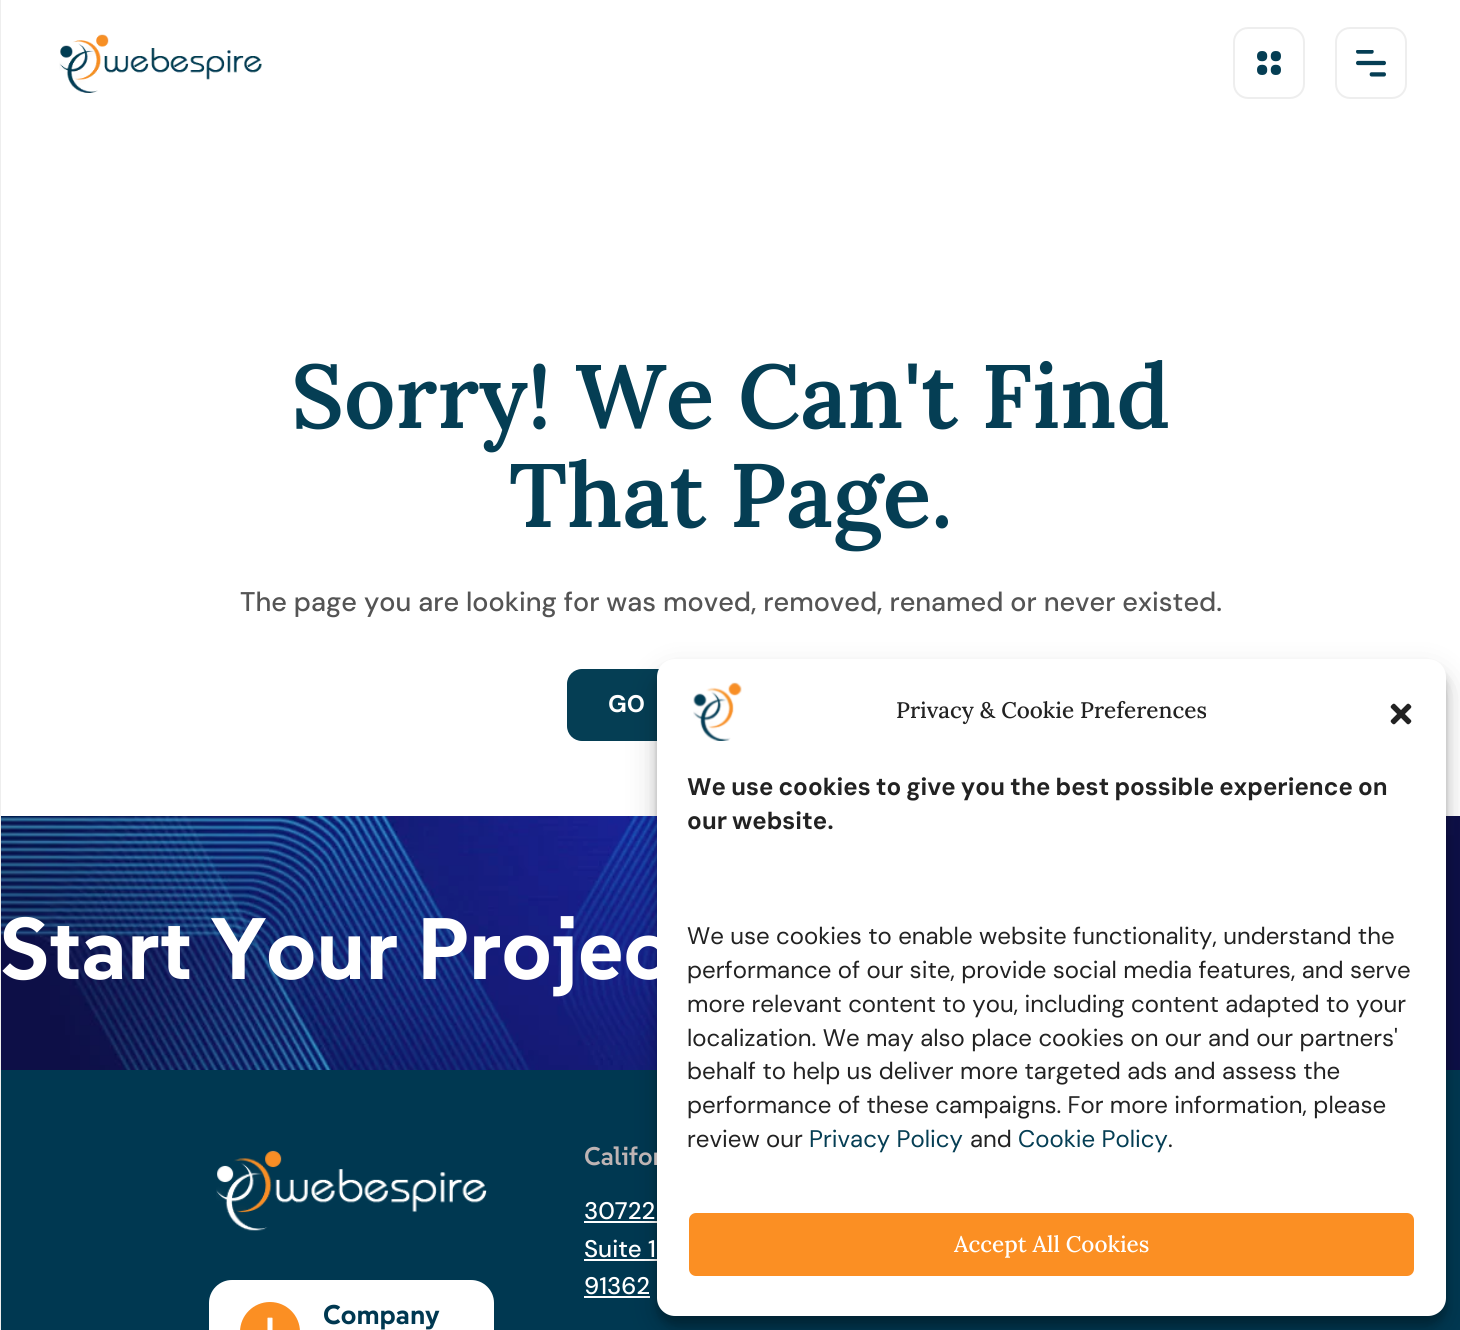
#include <cairo/cairo.h>
#include <math.h>
#include <stddef.h>


static void draw_spaced(cairo_t *cr, double x, double y, const char *s, double letter, double word) {
  cairo_move_to(cr, x, y);
  while (*s) {
    char ch[5] = {0};
    int n = 0;
    do ch[n++] = *s++; while ((*s & 0xC0) == 0x80);
    cairo_show_text(cr, ch);
    cairo_rel_move_to(cr, letter + word * (*ch == ' '), 0);
  }
}

static void rounded_rect(cairo_t *cr, double x, double y, double w, double h, double r) {
  cairo_new_sub_path(cr);
  cairo_arc(cr, x + w - r, y + h - r, r, 0, M_PI / 2);
  cairo_arc(cr, x + r, y + h - r, r, M_PI / 2, M_PI);
  cairo_arc(cr, x + r, y + r, r, M_PI, 1.5 * M_PI);
  cairo_arc(cr, x + w - r, y + r, r, 1.5 * M_PI, 2 * M_PI);
  cairo_close_path(cr);
}

static void draw_shadow(cairo_t *cr, double x, double y, double w, double h, double r, double blur, double alpha) {
  cairo_push_group_with_content(cr, CAIRO_CONTENT_ALPHA);
  cairo_set_operator(cr, CAIRO_OPERATOR_SOURCE);
  for (int i = 15; i >= -15 && fmin(w, h) + blur * i / 3 > 0; i -= 2) {
    double e = blur * i / 6;
    cairo_set_source_rgba(cr, 0, 0, 0, alpha * erfc((i - 1) / 8.5) / 2);
    rounded_rect(cr, x - e, y - e, w + 2 * e, h + 2 * e, fmax(0, fmin(r + e + blur * .6, fmin(w, h) / 2 + e)));
    cairo_fill(cr);
  }
  cairo_pattern_t *soft = cairo_pop_group(cr);
  cairo_mask(cr, soft);
  cairo_pattern_destroy(soft);
}

static void draw_image(cairo_t *cr, const char *path, double x, double y, double w, double h) {
  cairo_surface_t *image = cairo_image_surface_create_from_png(path);
  cairo_save(cr);
  cairo_set_source_surface(cr, image, x, y);
  cairo_rectangle(cr, x, y, w, h);
  cairo_fill(cr);
  cairo_restore(cr);
  cairo_surface_destroy(image);
}

static void draw(cairo_t *cr) {
  cairo_set_source_rgb(cr, 1, 1, 1);
  cairo_paint(cr);
  cairo_set_source_rgb(cr, 238 / 255.0, 238 / 255.0, 238 / 255.0);
  cairo_rectangle(cr, 0, 0, 1, 1330);
  cairo_fill(cr);
  rounded_rect(cr, 1234, 28, 70, 70, 14);
  cairo_stroke(cr);
  draw_image(cr, "images/1.png", 1257, 51, 24, 24);
  rounded_rect(cr, 1336, 28, 70, 70, 14);
  cairo_stroke(cr);
  draw_image(cr, "images/2.png", 1356, 50, 30, 27);
  draw_image(cr, "images/3.png", 59, 34, 203, 59);
  cairo_set_source_rgb(cr, 5 / 255.0, 62 / 255.0, 84 / 255.0);
  rounded_rect(cr, 567, 669, 327, 72, 15);
  cairo_fill(cr);
  draw_image(cr, "images/4.png", 1, 816, 1459, 254);
  cairo_set_source_rgb(cr, 0, 56 / 255.0, 81 / 255.0);
  cairo_rectangle(cr, 1, 1070, 1459, 260);
  cairo_fill(cr);
  cairo_set_source_rgb(cr, 1, 1, 1);
  cairo_rectangle(cr, 584, 1221, 73, 2);
  cairo_fill(cr);
  cairo_rectangle(cr, 584, 1259, 73, 2);
  cairo_fill(cr);
  cairo_rectangle(cr, 584, 1296, 66, 2);
  cairo_fill(cr);
  draw_image(cr, "images/5.png", 216, 1150, 271, 81);
  rounded_rect(cr, 209, 1280, 285, 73, 23);
  cairo_fill(cr);
  rounded_rect(cr, 210, 1281, 283, 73, 22);
  cairo_set_source_rgba(cr, 1, 1, 1, 0.1);
  cairo_stroke(cr);
  cairo_set_source_rgb(cr, 251 / 255.0, 143 / 255.0, 35 / 255.0);
  rounded_rect(cr, 240, 1302, 60, 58, 30);
  cairo_fill(cr);
  draw_image(cr, "images/6.png", 267, 1317, 6, 13);
  cairo_set_source_rgb(cr, 0, 0, 0);
  draw_shadow(cr, 657, 668, 789, 657, 18, 4.5, 0.23);
  draw_shadow(cr, 657, 674, 789, 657, 18, 15, 0.19);
  cairo_select_font_face(cr, "Lora SemiBold", CAIRO_FONT_SLANT_NORMAL, CAIRO_FONT_WEIGHT_NORMAL);
  cairo_set_font_size(cr, 90);
  cairo_set_source_rgb(cr, 5 / 255.0, 62 / 255.0, 84 / 255.0);
  cairo_move_to(cr, 291, 428);
  cairo_show_text(cr, "Sorry! We Can't Find");
  cairo_move_to(cr, 509, 527);
  cairo_show_text(cr, "That Page.");
  cairo_select_font_face(cr, "DM Sans Medium", CAIRO_FONT_SLANT_NORMAL, CAIRO_FONT_WEIGHT_NORMAL);
  cairo_set_font_size(cr, 27);
  cairo_set_source_rgb(cr, 84 / 255.0, 84 / 255.0, 84 / 255.0);
  cairo_move_to(cr, 240, 611);
  cairo_show_text(cr, "The page you are looking for was moved, removed, renamed or never existed.");
  cairo_select_font_face(cr, "DM Sans", CAIRO_FONT_SLANT_NORMAL, CAIRO_FONT_WEIGHT_BOLD);
  cairo_set_font_size(cr, 24);
  cairo_set_source_rgb(cr, 1, 1, 1);
  cairo_move_to(cr, 608, 712);
  cairo_show_text(cr, "GO");
  cairo_select_font_face(cr, "SUSE", CAIRO_FONT_SLANT_NORMAL, CAIRO_FONT_WEIGHT_BOLD);
  cairo_set_font_size(cr, 87);
  cairo_move_to(cr, 0, 979);
  cairo_show_text(cr, "Start Your Projec");
  cairo_select_font_face(cr, "SUSE SemiBold", CAIRO_FONT_SLANT_NORMAL, CAIRO_FONT_WEIGHT_NORMAL);
  cairo_set_font_size(cr, 25.5);
  cairo_set_source_rgb(cr, 190 / 255.0, 180 / 255.0, 180 / 255.0);
  cairo_move_to(cr, 584, 1165);
  cairo_show_text(cr, "Califor");
  cairo_select_font_face(cr, "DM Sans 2 Medium", CAIRO_FONT_SLANT_NORMAL, CAIRO_FONT_WEIGHT_NORMAL);
  cairo_set_font_size(cr, 24);
  cairo_set_source_rgb(cr, 1, 1, 1);
  cairo_move_to(cr, 584, 1219);
  cairo_show_text(cr, "30722");
  cairo_move_to(cr, 584, 1257);
  cairo_show_text(cr, "Suite 1");
  cairo_move_to(cr, 584, 1294);
  cairo_show_text(cr, "91362");
  cairo_select_font_face(cr, "SUSE", CAIRO_FONT_SLANT_NORMAL, CAIRO_FONT_WEIGHT_BOLD);
  cairo_set_font_size(cr, 27);
  cairo_set_source_rgb(cr, 0, 56 / 255.0, 81 / 255.0);
  cairo_move_to(cr, 323, 1324);
  cairo_show_text(cr, "Company");
  cairo_set_source_rgb(cr, 1, 1, 1);
  rounded_rect(cr, 657, 659, 789, 657, 18);
  cairo_fill(cr);
  draw_image(cr, "images/7.png", 693, 682, 49, 59);
  cairo_select_font_face(cr, "Lora Medium", CAIRO_FONT_SLANT_NORMAL, CAIRO_FONT_WEIGHT_NORMAL);
  cairo_set_font_size(cr, 22.5);
  cairo_set_source_rgb(cr, 34 / 255.0, 34 / 255.0, 34 / 255.0);
  cairo_move_to(cr, 896, 718);
  cairo_show_text(cr, "Privacy & Cookie Preferences");
  draw_image(cr, "images/8.png", 1390, 703, 22, 22);
  cairo_select_font_face(cr, "DM Sans", CAIRO_FONT_SLANT_NORMAL, CAIRO_FONT_WEIGHT_BOLD);
  cairo_set_font_size(cr, 24);
  draw_spaced(cr, 687, 795, "We use cookies to give you the best possible experience on", 0, -0.75);
  draw_spaced(cr, 687, 829, "our website.", 0, -1);
  cairo_select_font_face(cr, "DM Sans", CAIRO_FONT_SLANT_NORMAL, CAIRO_FONT_WEIGHT_NORMAL);
  cairo_move_to(cr, 687, 944);
  cairo_show_text(cr, "We use cookies to enable website functionality, understand the");
  cairo_move_to(cr, 687, 978);
  cairo_show_text(cr, "performance of our site, provide social media features, and serve");
  cairo_move_to(cr, 687, 1012);
  cairo_show_text(cr, "more relevant content to you, including content adapted to your");
  cairo_move_to(cr, 687, 1046);
  cairo_show_text(cr, "localization. We may also place cookies on our and our partners'");
  cairo_move_to(cr, 687, 1079);
  cairo_show_text(cr, "behalf to help us deliver more targeted ads and assess the");
  cairo_move_to(cr, 687, 1113);
  cairo_show_text(cr, "performance of these campaigns. For more information, please");
  cairo_move_to(cr, 687, 1147);
  cairo_show_text(cr, "review our");
  cairo_set_source_rgb(cr, 5 / 255.0, 62 / 255.0, 84 / 255.0);
  cairo_move_to(cr, 809, 1147);
  cairo_show_text(cr, "Privacy Policy");
  cairo_set_source_rgb(cr, 34 / 255.0, 34 / 255.0, 34 / 255.0);
  cairo_move_to(cr, 970, 1147);
  cairo_show_text(cr, "and");
  cairo_set_source_rgb(cr, 5 / 255.0, 62 / 255.0, 84 / 255.0);
  cairo_move_to(cr, 1018, 1147);
  cairo_show_text(cr, "Cookie Policy");
  cairo_set_source_rgb(cr, 34 / 255.0, 34 / 255.0, 34 / 255.0);
  cairo_move_to(cr, 1168, 1147);
  cairo_show_text(cr, ".");
  cairo_set_source_rgb(cr, 251 / 255.0, 143 / 255.0, 35 / 255.0);
  rounded_rect(cr, 688, 1212, 727, 65, 8);
  cairo_fill_preserve(cr);
  cairo_set_source_rgb(cr, 1, 1, 1);
  cairo_stroke(cr);
  cairo_select_font_face(cr, "Lora Medium", CAIRO_FONT_SLANT_NORMAL, CAIRO_FONT_WEIGHT_NORMAL);
  cairo_set_font_size(cr, 22.5);
  cairo_move_to(cr, 954, 1252);
  cairo_show_text(cr, "Accept All Cookies");
}

int main(void) {
  cairo_surface_t *surface = cairo_image_surface_create(CAIRO_FORMAT_RGB24, 1460, 1330);
  cairo_t *cr = cairo_create(surface);
  cairo_font_options_t *options = cairo_font_options_create();
  cairo_font_options_set_hint_metrics(options, CAIRO_HINT_METRICS_OFF);
  cairo_font_options_set_hint_style(options, CAIRO_HINT_STYLE_NONE);
  cairo_set_font_options(cr, options);
  cairo_set_miter_limit(cr, 4);
  draw(cr);
  cairo_surface_write_to_png(surface, "out.png");
  cairo_font_options_destroy(options);
  cairo_destroy(cr);
  cairo_surface_destroy(surface);
  return 0;
}
